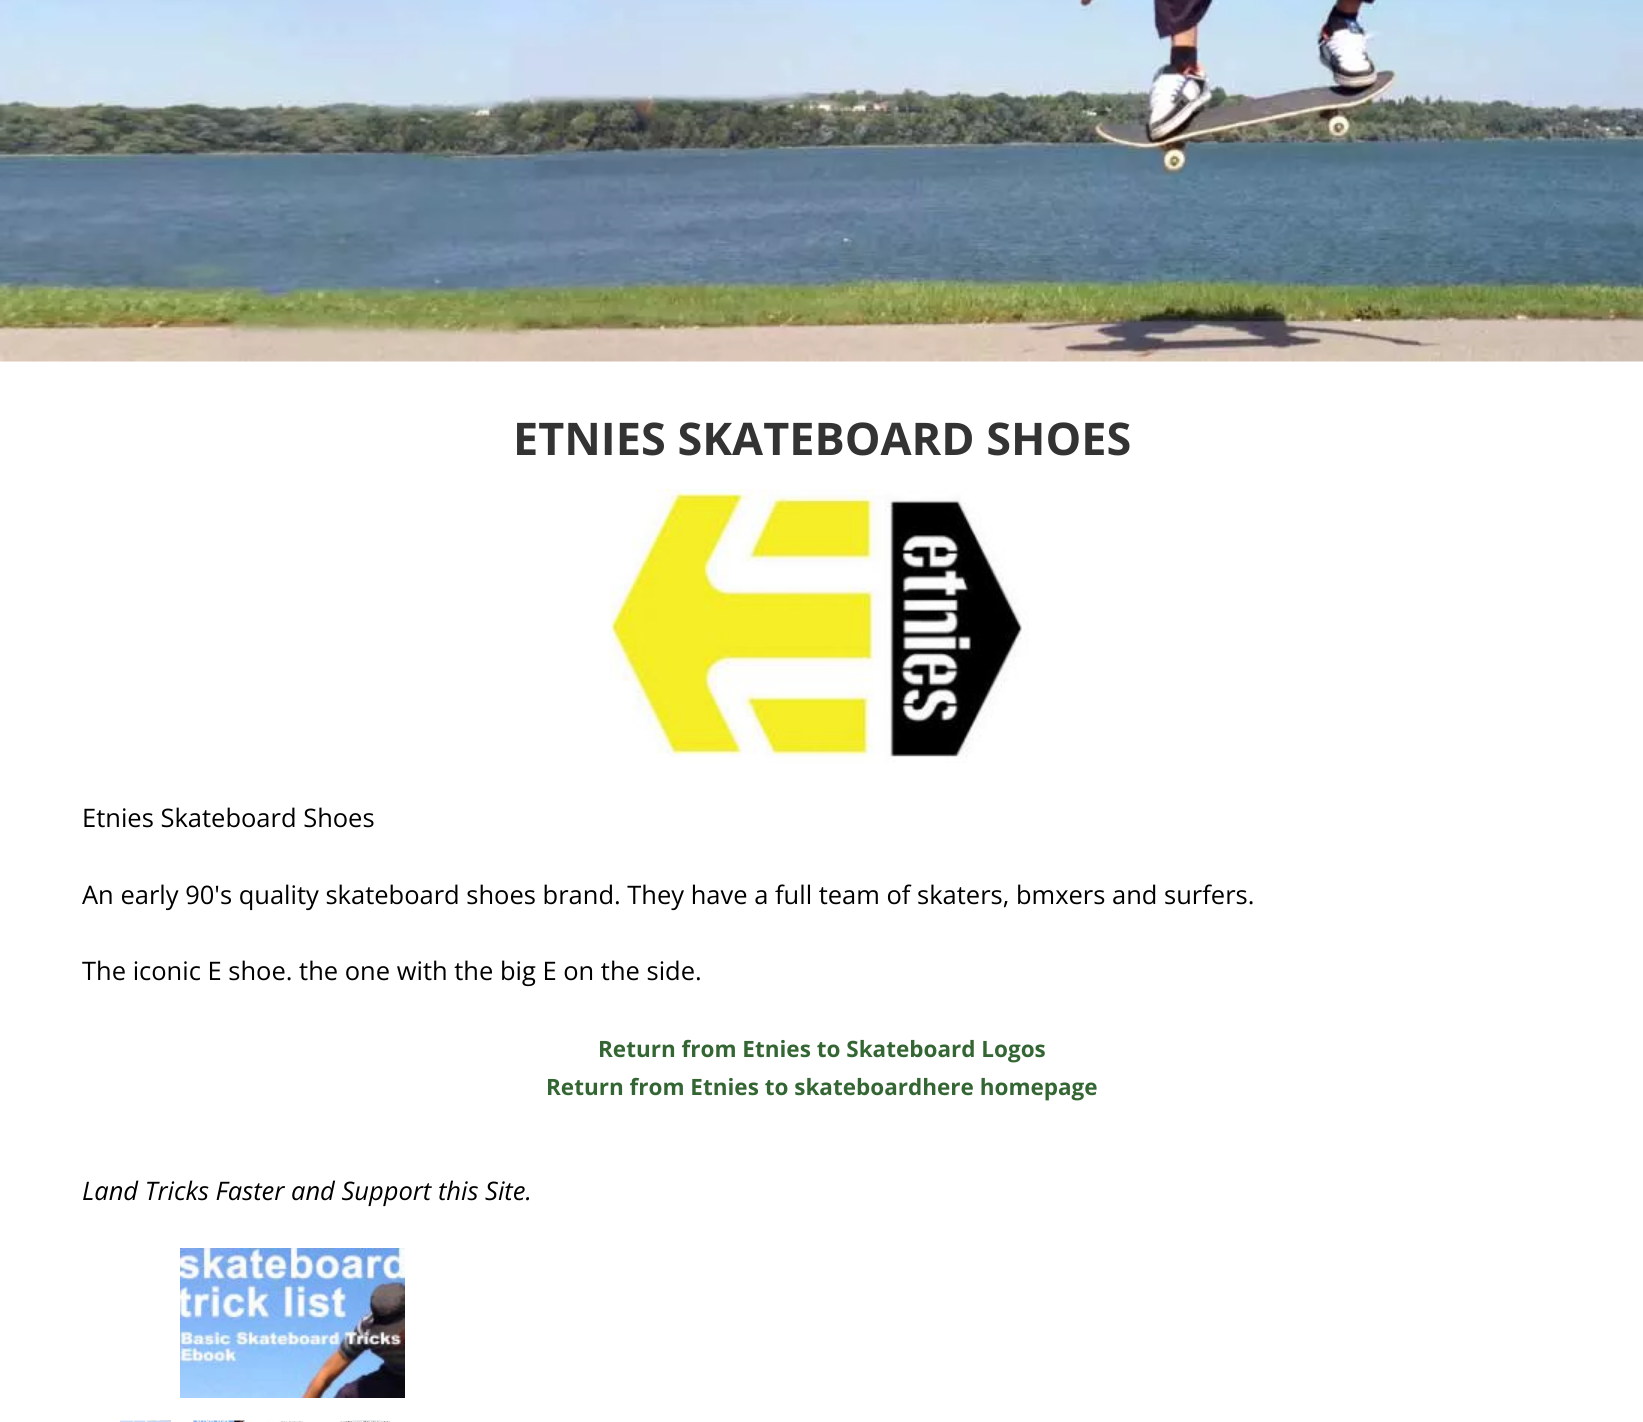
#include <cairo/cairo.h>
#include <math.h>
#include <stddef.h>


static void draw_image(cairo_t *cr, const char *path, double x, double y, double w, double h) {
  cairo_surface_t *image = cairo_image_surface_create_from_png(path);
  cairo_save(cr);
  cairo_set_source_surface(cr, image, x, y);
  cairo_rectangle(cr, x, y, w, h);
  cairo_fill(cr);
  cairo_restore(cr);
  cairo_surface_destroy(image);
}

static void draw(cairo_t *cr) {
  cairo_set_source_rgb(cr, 1, 1, 1);
  cairo_paint(cr);
  draw_image(cr, "images/1.png", 0, 0, 1643, 362);
  draw_image(cr, "images/2.png", 609, 489, 420, 274);
  draw_image(cr, "images/3.png", 120, 1248, 285, 174);
  cairo_select_font_face(cr, "Open Sans", CAIRO_FONT_SLANT_NORMAL, CAIRO_FONT_WEIGHT_BOLD);
  cairo_set_font_size(cr, 45);
  cairo_set_source_rgb(cr, 51 / 255.0, 51 / 255.0, 51 / 255.0);
  cairo_move_to(cr, 513, 455);
  cairo_show_text(cr, "ETNIES SKATEBOARD SHOES");
  cairo_select_font_face(cr, "Open Sans", CAIRO_FONT_SLANT_NORMAL, CAIRO_FONT_WEIGHT_NORMAL);
  cairo_set_font_size(cr, 25.5);
  cairo_set_source_rgb(cr, 0, 0, 0);
  cairo_move_to(cr, 82, 827);
  cairo_show_text(cr, "Etnies Skateboard Shoes");
  cairo_move_to(cr, 82, 904);
  cairo_show_text(cr, "An early 90's quality skateboard shoes brand. They have a full team of skaters, bmxers and surfers.");
  cairo_move_to(cr, 82, 980);
  cairo_show_text(cr, "The iconic E shoe. the one with the big E on the side.");
  cairo_select_font_face(cr, "Open Sans", CAIRO_FONT_SLANT_NORMAL, CAIRO_FONT_WEIGHT_BOLD);
  cairo_set_font_size(cr, 22.5);
  cairo_set_source_rgb(cr, 51 / 255.0, 102 / 255.0, 51 / 255.0);
  cairo_move_to(cr, 598, 1057);
  cairo_show_text(cr, "Return from Etnies to Skateboard Logos");
  cairo_move_to(cr, 546, 1095);
  cairo_show_text(cr, "Return from Etnies to skateboardhere homepage");
  cairo_select_font_face(cr, "Open Sans", CAIRO_FONT_SLANT_ITALIC, CAIRO_FONT_WEIGHT_NORMAL);
  cairo_set_font_size(cr, 25.5);
  cairo_set_source_rgb(cr, 0, 0, 0);
  cairo_move_to(cr, 82, 1200);
  cairo_show_text(cr, "Land Tricks Faster and Support this Site.");
}

int main(void) {
  cairo_surface_t *surface = cairo_image_surface_create(CAIRO_FORMAT_RGB24, 1643, 1422);
  cairo_t *cr = cairo_create(surface);
  cairo_font_options_t *options = cairo_font_options_create();
  cairo_font_options_set_hint_metrics(options, CAIRO_HINT_METRICS_OFF);
  cairo_font_options_set_hint_style(options, CAIRO_HINT_STYLE_NONE);
  cairo_set_font_options(cr, options);
  cairo_set_miter_limit(cr, 4);
  draw(cr);
  cairo_surface_write_to_png(surface, "out.png");
  cairo_font_options_destroy(options);
  cairo_destroy(cr);
  cairo_surface_destroy(surface);
  return 0;
}
